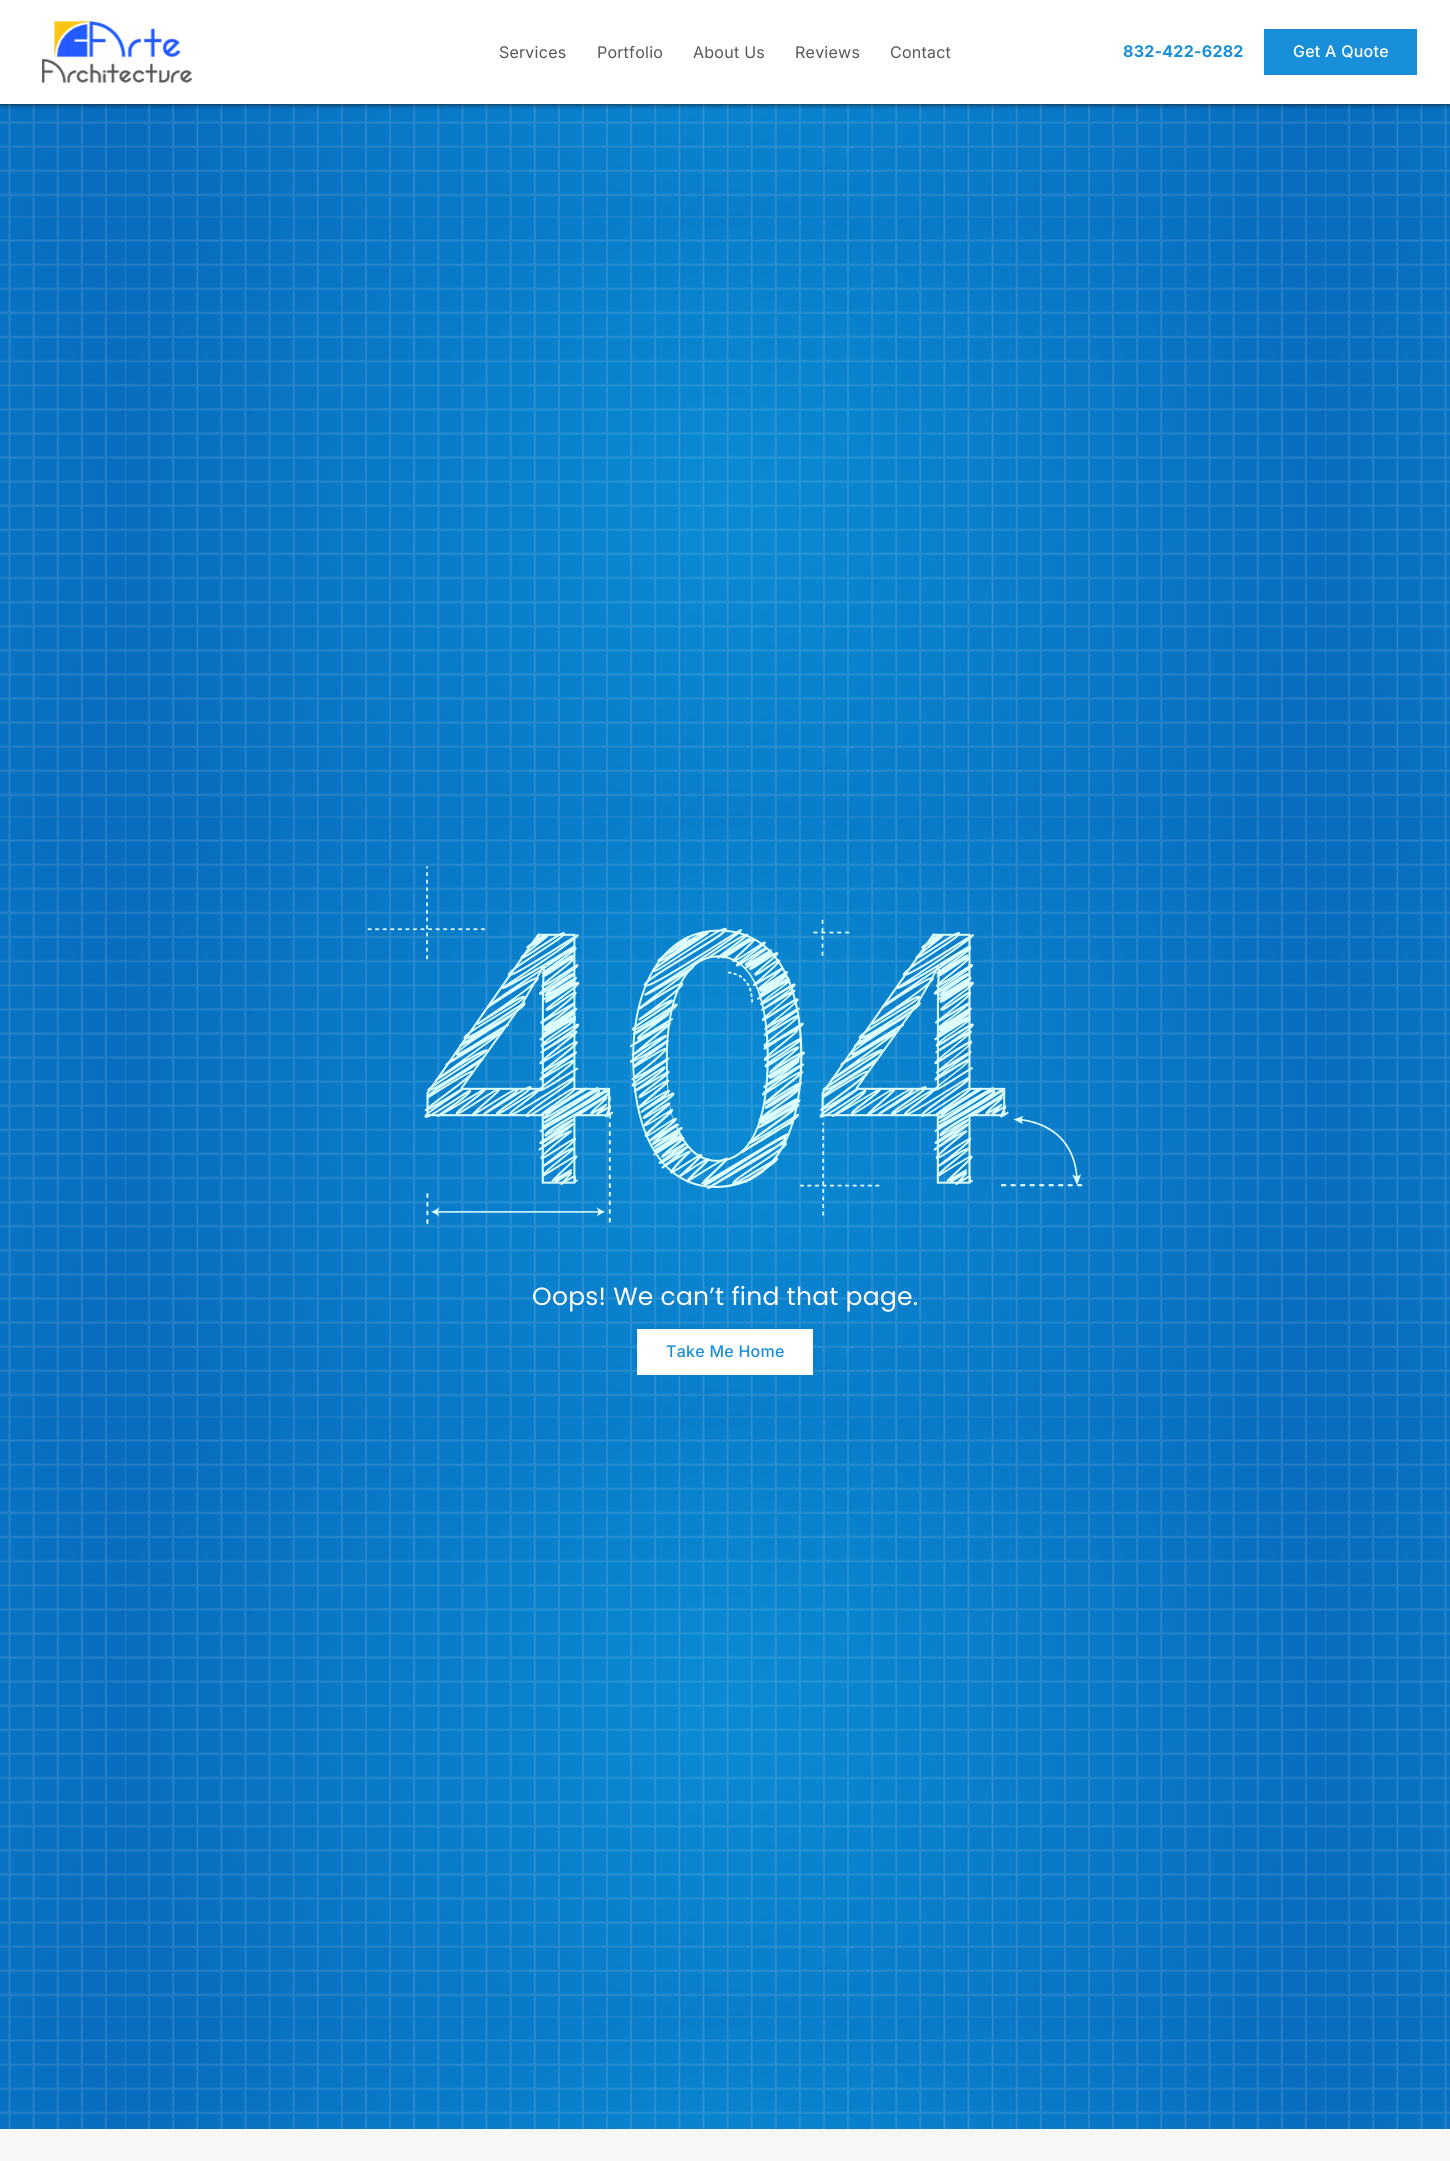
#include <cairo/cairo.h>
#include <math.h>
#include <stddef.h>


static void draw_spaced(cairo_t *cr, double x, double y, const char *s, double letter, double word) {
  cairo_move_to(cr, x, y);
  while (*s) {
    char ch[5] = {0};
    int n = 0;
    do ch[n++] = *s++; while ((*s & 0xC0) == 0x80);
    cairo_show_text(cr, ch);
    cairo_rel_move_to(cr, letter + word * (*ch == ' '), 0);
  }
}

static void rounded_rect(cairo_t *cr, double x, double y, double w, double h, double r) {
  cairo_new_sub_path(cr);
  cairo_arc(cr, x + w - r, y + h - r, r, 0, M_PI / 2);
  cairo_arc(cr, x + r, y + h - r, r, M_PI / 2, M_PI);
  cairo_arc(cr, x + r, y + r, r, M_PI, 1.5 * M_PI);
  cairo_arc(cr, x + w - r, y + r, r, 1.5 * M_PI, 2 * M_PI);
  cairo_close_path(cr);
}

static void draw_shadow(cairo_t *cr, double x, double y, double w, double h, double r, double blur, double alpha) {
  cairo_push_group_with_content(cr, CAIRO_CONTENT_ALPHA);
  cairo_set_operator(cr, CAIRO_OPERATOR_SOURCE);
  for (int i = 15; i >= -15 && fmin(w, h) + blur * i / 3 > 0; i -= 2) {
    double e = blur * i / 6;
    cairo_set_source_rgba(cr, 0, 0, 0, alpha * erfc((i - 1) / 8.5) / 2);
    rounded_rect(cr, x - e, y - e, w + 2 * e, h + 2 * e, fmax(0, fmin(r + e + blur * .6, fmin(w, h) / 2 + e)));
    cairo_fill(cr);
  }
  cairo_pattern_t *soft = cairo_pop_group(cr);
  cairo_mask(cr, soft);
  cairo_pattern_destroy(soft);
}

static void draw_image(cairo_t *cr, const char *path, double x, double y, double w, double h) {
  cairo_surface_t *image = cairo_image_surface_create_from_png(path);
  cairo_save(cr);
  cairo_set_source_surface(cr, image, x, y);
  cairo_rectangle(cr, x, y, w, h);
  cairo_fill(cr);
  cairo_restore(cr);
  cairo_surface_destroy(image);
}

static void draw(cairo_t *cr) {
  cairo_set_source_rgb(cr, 1, 1, 1);
  cairo_paint(cr);
  draw_image(cr, "images/2.png", 0, 104, 1450, 2025);
  cairo_save(cr);
  cairo_rectangle(cr, 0, 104, 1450, 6);
  cairo_clip(cr);
  cairo_set_source_rgb(cr, 20 / 255.0, 22 / 255.0, 23 / 255.0);
  draw_shadow(cr, 0, 0, 1450, 104, 0, 3, 1);
  cairo_restore(cr);
  draw_image(cr, "images/1.png", 42, 21, 150, 62);
  cairo_set_source_rgb(cr, 25 / 255.0, 143 / 255.0, 217 / 255.0);
  cairo_rectangle(cr, 1264, 29, 153, 46);
  cairo_fill(cr);
  draw_image(cr, "images/3.png", 367, 866, 716, 358);
  cairo_set_source_rgb(cr, 1, 1, 1);
  cairo_rectangle(cr, 637, 1329, 176, 46);
  cairo_fill(cr);
  cairo_set_source_rgb(cr, 248 / 255.0, 247 / 255.0, 247 / 255.0);
  cairo_rectangle(cr, 0, 2129, 1450, 32);
  cairo_fill(cr);
  cairo_select_font_face(cr, "Inter", CAIRO_FONT_SLANT_NORMAL, CAIRO_FONT_WEIGHT_NORMAL);
  cairo_set_font_size(cr, 16);
  cairo_set_source_rgb(cr, 87 / 255.0, 87 / 255.0, 87 / 255.0);
  draw_spaced(cr, 499, 58, "Services", 0.25, 0);
  draw_spaced(cr, 597, 58, "Portfolio", 0.25, 0);
  draw_spaced(cr, 693, 58, "About Us", 0.25, 0);
  draw_spaced(cr, 795, 58, "Reviews", 0.25, 0);
  draw_spaced(cr, 890, 58, "Contact", 0.25, 0);
  cairo_select_font_face(cr, "Inter", CAIRO_FONT_SLANT_NORMAL, CAIRO_FONT_WEIGHT_BOLD);
  cairo_set_source_rgb(cr, 25 / 255.0, 143 / 255.0, 217 / 255.0);
  draw_spaced(cr, 1123, 57, "832-422-6282", 0.25, 0);
  cairo_select_font_face(cr, "Inter Medium", CAIRO_FONT_SLANT_NORMAL, CAIRO_FONT_WEIGHT_NORMAL);
  cairo_set_source_rgb(cr, 1, 1, 1);
  draw_spaced(cr, 1293, 57, "Get A Quote", 0.25, 0);
  cairo_select_font_face(cr, "Poppins", CAIRO_FONT_SLANT_NORMAL, CAIRO_FONT_WEIGHT_NORMAL);
  cairo_set_font_size(cr, 25);
  draw_spaced(cr, 532, 1305, "Oops! We can’t find that page.", 0.25, 0);
  cairo_select_font_face(cr, "Inter Medium", CAIRO_FONT_SLANT_NORMAL, CAIRO_FONT_WEIGHT_NORMAL);
  cairo_set_font_size(cr, 16);
  cairo_set_source_rgb(cr, 25 / 255.0, 143 / 255.0, 217 / 255.0);
  draw_spaced(cr, 666, 1357, "Take Me Home", 0.25, 0);
}

int main(void) {
  cairo_surface_t *surface = cairo_image_surface_create(CAIRO_FORMAT_RGB24, 1450, 2161);
  cairo_t *cr = cairo_create(surface);
  cairo_font_options_t *options = cairo_font_options_create();
  cairo_font_options_set_hint_metrics(options, CAIRO_HINT_METRICS_OFF);
  cairo_font_options_set_hint_style(options, CAIRO_HINT_STYLE_NONE);
  cairo_set_font_options(cr, options);
  cairo_set_miter_limit(cr, 4);
  draw(cr);
  cairo_surface_write_to_png(surface, "out.png");
  cairo_font_options_destroy(options);
  cairo_destroy(cr);
  cairo_surface_destroy(surface);
  return 0;
}
